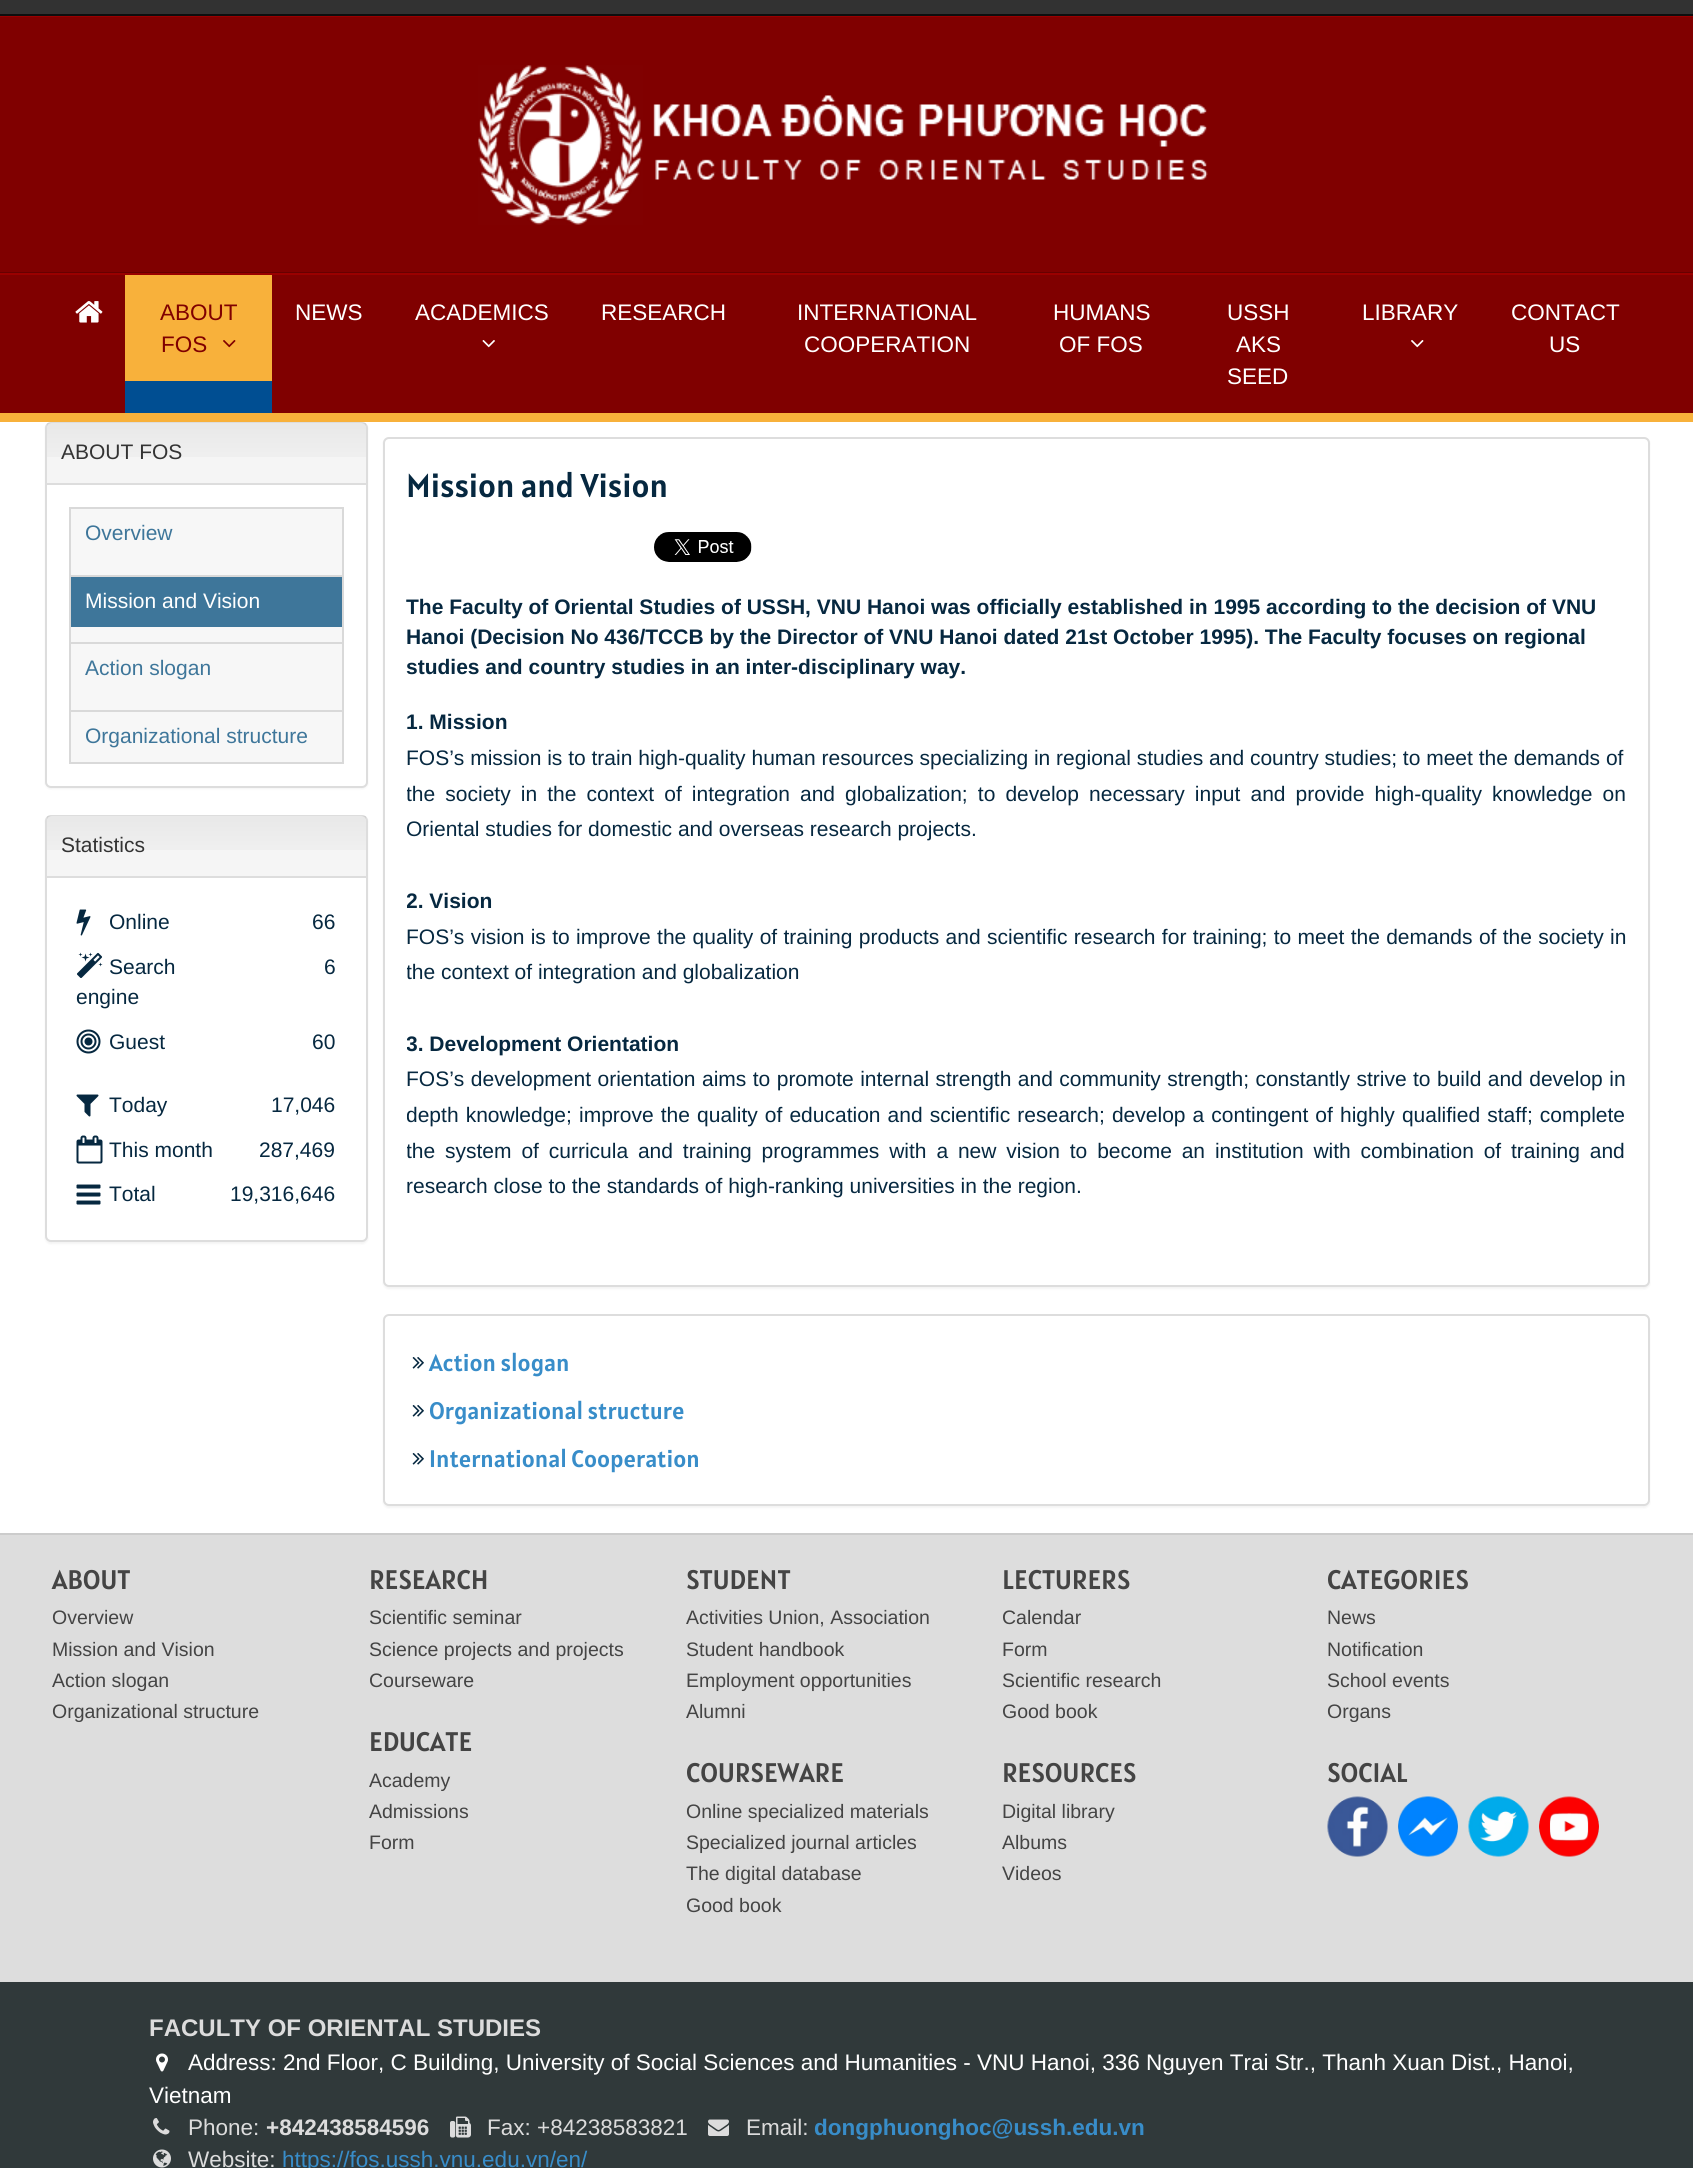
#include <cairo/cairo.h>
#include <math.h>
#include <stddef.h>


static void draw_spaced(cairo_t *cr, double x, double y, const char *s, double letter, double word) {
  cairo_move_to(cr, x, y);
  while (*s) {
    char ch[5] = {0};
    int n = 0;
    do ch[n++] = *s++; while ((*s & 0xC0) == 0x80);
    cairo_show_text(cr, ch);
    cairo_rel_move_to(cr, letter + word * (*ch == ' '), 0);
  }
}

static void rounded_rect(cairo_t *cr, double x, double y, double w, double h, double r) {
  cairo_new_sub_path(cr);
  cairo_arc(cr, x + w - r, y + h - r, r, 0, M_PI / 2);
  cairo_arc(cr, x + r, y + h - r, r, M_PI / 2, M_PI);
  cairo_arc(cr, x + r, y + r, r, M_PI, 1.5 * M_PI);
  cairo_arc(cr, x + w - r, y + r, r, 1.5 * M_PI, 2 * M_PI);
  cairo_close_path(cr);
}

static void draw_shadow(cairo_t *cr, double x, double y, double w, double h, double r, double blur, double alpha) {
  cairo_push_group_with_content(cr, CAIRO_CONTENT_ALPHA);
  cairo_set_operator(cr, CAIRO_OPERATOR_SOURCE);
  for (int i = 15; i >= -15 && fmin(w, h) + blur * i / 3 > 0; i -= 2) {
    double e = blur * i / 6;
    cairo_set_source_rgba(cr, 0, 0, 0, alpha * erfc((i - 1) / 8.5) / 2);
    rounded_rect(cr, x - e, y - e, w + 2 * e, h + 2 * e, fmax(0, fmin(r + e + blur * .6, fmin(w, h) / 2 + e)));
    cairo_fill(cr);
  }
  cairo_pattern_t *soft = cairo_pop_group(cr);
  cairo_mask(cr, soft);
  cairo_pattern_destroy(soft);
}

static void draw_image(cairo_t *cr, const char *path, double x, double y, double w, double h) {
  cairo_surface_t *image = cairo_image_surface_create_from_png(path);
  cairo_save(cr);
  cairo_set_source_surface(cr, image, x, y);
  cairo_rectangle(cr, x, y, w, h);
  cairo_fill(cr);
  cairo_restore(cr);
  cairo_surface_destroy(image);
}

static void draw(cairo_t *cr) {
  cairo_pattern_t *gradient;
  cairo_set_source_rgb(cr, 1, 1, 1);
  cairo_paint(cr);
  gradient = cairo_pattern_create_linear(847, -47, 847, 413);
  cairo_pattern_add_color_stop_rgba(gradient, 0, 51 / 255.0, 51 / 255.0, 51 / 255.0, 1);
  cairo_pattern_add_color_stop_rgba(gradient, 1, 43 / 255.0, 43 / 255.0, 43 / 255.0, 1);
  cairo_set_source(cr, gradient);
  cairo_pattern_destroy(gradient);
  cairo_rectangle(cr, 0, 0, 1693, 14);
  cairo_fill(cr);
  cairo_set_source_rgb(cr, 248 / 255.0, 177 / 255.0, 59 / 255.0);
  cairo_rectangle(cr, 0, 413, 1693, 9);
  cairo_fill(cr);
  cairo_set_source_rgb(cr, 14 / 255.0, 14 / 255.0, 14 / 255.0);
  cairo_rectangle(cr, 0, 14, 1693, 2);
  cairo_fill(cr);
  cairo_set_source_rgb(cr, 128 / 255.0, 0, 0);
  cairo_rectangle(cr, 0, 17, 1693, 255);
  cairo_fill(cr);
  cairo_set_source_rgb(cr, 154 / 255.0, 0, 0);
  cairo_rectangle(cr, 0, 16, 1693, 1);
  cairo_fill(cr);
  cairo_set_source_rgb(cr, 103 / 255.0, 0, 0);
  cairo_rectangle(cr, 0, 272, 1693, 1);
  cairo_fill(cr);
  draw_image(cr, "images/1.png", 478, 65, 730, 160);
  cairo_set_source_rgb(cr, 128 / 255.0, 0, 0);
  cairo_rectangle(cr, 0, 275, 1693, 138);
  cairo_fill(cr);
  cairo_set_source_rgb(cr, 154 / 255.0, 0, 0);
  cairo_rectangle(cr, 0, 273, 1693, 2);
  cairo_fill(cr);
  draw_image(cr, "images/2.png", 75, 301, 28, 22);
  cairo_set_source_rgb(cr, 0, 78 / 255.0, 146 / 255.0);
  cairo_rectangle(cr, 125, 381, 147, 32);
  cairo_fill(cr);
  cairo_set_source_rgb(cr, 248 / 255.0, 177 / 255.0, 59 / 255.0);
  cairo_rectangle(cr, 125, 275, 147, 106);
  cairo_fill(cr);
  draw_image(cr, "images/3.png", 223, 340, 13, 8);
  draw_image(cr, "images/4.png", 482, 340, 13, 8);
  draw_image(cr, "images/5.png", 1411, 340, 13, 8);
  cairo_set_source_rgb(cr, 0, 0, 0);
  draw_shadow(cr, 45, 423, 323, 366, 6, 1, 0.05);
  cairo_set_source_rgb(cr, 1, 1, 1);
  rounded_rect(cr, 46, 423, 321, 364, 5);
  cairo_fill_preserve(cr);
  cairo_set_source_rgb(cr, 221 / 255.0, 221 / 255.0, 221 / 255.0);
  cairo_stroke(cr);
  cairo_set_source_rgb(cr, 245 / 255.0, 245 / 255.0, 245 / 255.0);
  cairo_new_path(cr);
  cairo_move_to(cr, 52, 423);
  cairo_line_to(cr, 361, 423);
  cairo_curve_to(cr, 364, 423, 366, 425, 366, 428);
  cairo_line_to(cr, 366, 485);
  cairo_line_to(cr, 47, 485);
  cairo_line_to(cr, 47, 428);
  cairo_curve_to(cr, 47, 425, 49, 423, 52, 423);
  cairo_close_path(cr);
  cairo_fill(cr);
  gradient = cairo_pattern_create_linear(206, 423, 206, 483);
  cairo_pattern_add_color_stop_rgba(gradient, 0, 0, 0, 0, 0.05);
  cairo_pattern_add_color_stop_rgba(gradient, 1, 0, 0, 0, 0);
  cairo_set_source(cr, gradient);
  cairo_pattern_destroy(gradient);
  cairo_rectangle(cr, 47, 423, 319, 34);
  cairo_fill(cr);
  cairo_set_source_rgb(cr, 221 / 255.0, 221 / 255.0, 221 / 255.0);
  cairo_rectangle(cr, 47, 483, 319, 2);
  cairo_fill(cr);
  cairo_set_source_rgb(cr, 247 / 255.0, 247 / 255.0, 247 / 255.0);
  cairo_rectangle(cr, 71, 509, 271, 253);
  cairo_fill(cr);
  cairo_set_source_rgb(cr, 217 / 255.0, 217 / 255.0, 217 / 255.0);
  cairo_rectangle(cr, 342, 507, 2, 257);
  cairo_fill(cr);
  cairo_rectangle(cr, 69, 762, 275, 2);
  cairo_fill(cr);
  cairo_rectangle(cr, 69, 507, 2, 257);
  cairo_fill(cr);
  cairo_rectangle(cr, 71, 507, 271, 2);
  cairo_fill(cr);
  cairo_set_source_rgb(cr, 62 / 255.0, 118 / 255.0, 154 / 255.0);
  cairo_rectangle(cr, 71, 577, 271, 50);
  cairo_fill(cr);
  cairo_set_source_rgb(cr, 217 / 255.0, 217 / 255.0, 217 / 255.0);
  cairo_rectangle(cr, 71, 575, 271, 2);
  cairo_fill(cr);
  cairo_rectangle(cr, 71, 642, 271, 2);
  cairo_fill(cr);
  cairo_rectangle(cr, 71, 710, 271, 2);
  cairo_fill(cr);
  cairo_set_source_rgb(cr, 0, 0, 0);
  draw_shadow(cr, 45, 816, 323, 428, 6, 1, 0.05);
  cairo_set_source_rgb(cr, 1, 1, 1);
  rounded_rect(cr, 46, 816, 321, 425, 5);
  cairo_fill_preserve(cr);
  cairo_set_source_rgb(cr, 221 / 255.0, 221 / 255.0, 221 / 255.0);
  cairo_stroke(cr);
  cairo_set_source_rgb(cr, 245 / 255.0, 245 / 255.0, 245 / 255.0);
  cairo_new_path(cr);
  cairo_move_to(cr, 52, 816);
  cairo_line_to(cr, 361, 816);
  cairo_curve_to(cr, 364, 816, 366, 818, 366, 821);
  cairo_line_to(cr, 366, 878);
  cairo_line_to(cr, 47, 878);
  cairo_line_to(cr, 47, 821);
  cairo_curve_to(cr, 47, 818, 49, 816, 52, 816);
  cairo_close_path(cr);
  cairo_fill(cr);
  gradient = cairo_pattern_create_linear(206, 816, 206, 876);
  cairo_pattern_add_color_stop_rgba(gradient, 0, 0, 0, 0, 0.05);
  cairo_pattern_add_color_stop_rgba(gradient, 1, 0, 0, 0, 0);
  cairo_set_source(cr, gradient);
  cairo_pattern_destroy(gradient);
  cairo_rectangle(cr, 47, 816, 319, 34);
  cairo_fill(cr);
  cairo_set_source_rgb(cr, 221 / 255.0, 221 / 255.0, 221 / 255.0);
  cairo_rectangle(cr, 47, 876, 319, 2);
  cairo_fill(cr);
  draw_image(cr, "images/6.png", 76, 909, 15, 27);
  draw_image(cr, "images/7.png", 77, 952, 26, 26);
  draw_image(cr, "images/8.png", 76, 1029, 25, 25);
  draw_image(cr, "images/9.png", 76, 1094, 23, 23);
  draw_image(cr, "images/10.png", 76, 1135, 27, 29);
  draw_image(cr, "images/11.png", 76, 1184, 25, 21);
  cairo_set_source_rgb(cr, 0, 0, 0);
  draw_shadow(cr, 383, 438, 1267, 851, 6, 1, 0.05);
  cairo_set_source_rgb(cr, 1, 1, 1);
  rounded_rect(cr, 384, 438, 1265, 848, 5);
  cairo_fill_preserve(cr);
  cairo_set_source_rgb(cr, 221 / 255.0, 221 / 255.0, 221 / 255.0);
  cairo_stroke(cr);
  draw_image(cr, "images/12.png", 654, 532, 98, 30);
  cairo_set_source_rgb(cr, 0, 0, 0);
  draw_shadow(cr, 383, 1316, 1267, 192, 6, 1, 0.05);
  cairo_set_source_rgb(cr, 1, 1, 1);
  rounded_rect(cr, 384, 1315, 1265, 190, 5);
  cairo_fill_preserve(cr);
  cairo_set_source_rgb(cr, 221 / 255.0, 221 / 255.0, 221 / 255.0);
  cairo_stroke(cr);
  draw_image(cr, "images/13.png", 412, 1357, 12, 12);
  draw_image(cr, "images/13.png", 412, 1405, 12, 12);
  draw_image(cr, "images/13.png", 412, 1453, 12, 12);
  cairo_rectangle(cr, 0, 1535, 1693, 447);
  cairo_fill(cr);
  cairo_set_source_rgb(cr, 204 / 255.0, 204 / 255.0, 204 / 255.0);
  cairo_rectangle(cr, 0, 1533, 1693, 2);
  cairo_fill(cr);
  draw_image(cr, "images/14.png", 1327, 1796, 61, 61);
  draw_image(cr, "images/15.png", 1398, 1796, 60, 61);
  draw_image(cr, "images/16.png", 1468, 1796, 61, 61);
  draw_image(cr, "images/17.png", 1539, 1796, 60, 61);
  cairo_set_source_rgb(cr, 48 / 255.0, 57 / 255.0, 58 / 255.0);
  cairo_rectangle(cr, 0, 1982, 1693, 186);
  cairo_fill(cr);
  draw_image(cr, "images/18.png", 156, 2053, 12, 19);
  draw_image(cr, "images/19.png", 153, 2118, 17, 17);
  draw_image(cr, "images/20.png", 450, 2116, 21, 22);
  draw_image(cr, "images/21.png", 708, 2119, 21, 17);
  draw_image(cr, "images/22.png", 153, 2149, 18, 19);
  cairo_select_font_face(cr, "Liberation Sans", CAIRO_FONT_SLANT_NORMAL, CAIRO_FONT_WEIGHT_NORMAL);
  cairo_set_font_size(cr, 22.5);
  cairo_set_source_rgb(cr, 128 / 255.0, 0, 0);
  cairo_move_to(cr, 160, 320);
  cairo_show_text(cr, "ABOUT");
  cairo_move_to(cr, 161, 352);
  cairo_show_text(cr, "FOS");
  cairo_set_source_rgb(cr, 1, 1, 1);
  cairo_move_to(cr, 295, 320);
  cairo_show_text(cr, "NEWS");
  cairo_move_to(cr, 415, 320);
  cairo_show_text(cr, "ACADEMICS");
  cairo_move_to(cr, 601, 320);
  cairo_show_text(cr, "RESEARCH");
  cairo_move_to(cr, 797, 320);
  cairo_show_text(cr, "INTERNATIONAL");
  cairo_move_to(cr, 804, 352);
  cairo_show_text(cr, "COOPERATION");
  cairo_move_to(cr, 1053, 320);
  cairo_show_text(cr, "HUMANS");
  cairo_move_to(cr, 1059, 352);
  cairo_show_text(cr, "OF FOS");
  cairo_move_to(cr, 1227, 320);
  cairo_show_text(cr, "USSH");
  cairo_move_to(cr, 1236, 352);
  cairo_show_text(cr, "AKS");
  cairo_move_to(cr, 1227, 384);
  cairo_show_text(cr, "SEED");
  cairo_move_to(cr, 1362, 320);
  cairo_show_text(cr, "LIBRARY");
  cairo_move_to(cr, 1511, 320);
  cairo_show_text(cr, "CONTACT");
  cairo_move_to(cr, 1549, 352);
  cairo_show_text(cr, "US");
  cairo_set_font_size(cr, 21);
  cairo_set_source_rgb(cr, 51 / 255.0, 51 / 255.0, 51 / 255.0);
  cairo_move_to(cr, 61, 459);
  cairo_show_text(cr, "ABOUT FOS");
  cairo_set_source_rgb(cr, 62 / 255.0, 118 / 255.0, 154 / 255.0);
  cairo_move_to(cr, 85, 540);
  cairo_show_text(cr, "Overview");
  cairo_set_source_rgb(cr, 1, 1, 1);
  cairo_move_to(cr, 85, 608);
  cairo_show_text(cr, "Mission and Vision");
  cairo_set_source_rgb(cr, 62 / 255.0, 118 / 255.0, 154 / 255.0);
  cairo_move_to(cr, 85, 675);
  cairo_show_text(cr, "Action slogan");
  cairo_move_to(cr, 85, 743);
  cairo_show_text(cr, "Organizational structure");
  cairo_set_source_rgb(cr, 51 / 255.0, 51 / 255.0, 51 / 255.0);
  cairo_move_to(cr, 61, 852);
  cairo_show_text(cr, "Statistics");
  cairo_set_source_rgb(cr, 6 / 255.0, 40 / 255.0, 64 / 255.0);
  cairo_move_to(cr, 109, 929);
  cairo_show_text(cr, "Online");
  cairo_move_to(cr, 312, 929);
  cairo_show_text(cr, "66");
  cairo_move_to(cr, 109, 974);
  cairo_show_text(cr, "Search");
  cairo_move_to(cr, 76, 1004);
  cairo_show_text(cr, "engine");
  cairo_move_to(cr, 324, 974);
  cairo_show_text(cr, "6");
  cairo_move_to(cr, 109, 1049);
  cairo_show_text(cr, "Guest");
  cairo_move_to(cr, 312, 1049);
  cairo_show_text(cr, "60");
  cairo_move_to(cr, 109, 1112);
  cairo_show_text(cr, "Today");
  cairo_move_to(cr, 271, 1112);
  cairo_show_text(cr, "17,046");
  cairo_move_to(cr, 109, 1157);
  cairo_show_text(cr, "This month");
  cairo_move_to(cr, 259, 1157);
  cairo_show_text(cr, "287,469");
  cairo_move_to(cr, 109, 1201);
  cairo_show_text(cr, "Total");
  cairo_move_to(cr, 230, 1201);
  cairo_show_text(cr, "19,316,646");
  cairo_select_font_face(cr, "Alatsi", CAIRO_FONT_SLANT_NORMAL, CAIRO_FONT_WEIGHT_NORMAL);
  cairo_set_font_size(cr, 33);
  cairo_move_to(cr, 406, 497);
  cairo_show_text(cr, "Mission and Vision");
  cairo_select_font_face(cr, "Liberation Sans", CAIRO_FONT_SLANT_NORMAL, CAIRO_FONT_WEIGHT_BOLD);
  cairo_set_font_size(cr, 21);
  cairo_move_to(cr, 406, 614);
  cairo_show_text(cr, "The Faculty of Oriental Studies of USSH, VNU Hanoi was officially established in 1995 according to the decision of VNU");
  cairo_move_to(cr, 406, 644);
  cairo_show_text(cr, "Hanoi (Decision No 436/TCCB by the Director of VNU Hanoi dated 21st October 1995). The Faculty focuses on regional");
  cairo_move_to(cr, 406, 674);
  cairo_show_text(cr, "studies and country studies in an inter-disciplinary way.");
  cairo_move_to(cr, 406, 729);
  cairo_show_text(cr, "1. Mission");
  cairo_select_font_face(cr, "Liberation Sans", CAIRO_FONT_SLANT_NORMAL, CAIRO_FONT_WEIGHT_NORMAL);
  cairo_move_to(cr, 406, 765);
  cairo_show_text(cr, "FOS’s mission is to train high-quality human resources specializing in regional studies and country studies; to meet the demands of");
  cairo_save(cr);
  cairo_rectangle(cr, 407, 705, 1219, 536);
  cairo_clip(cr);
  draw_spaced(cr, 406, 801, "the society in the context of integration and globalization; to develop necessary input and provide high-quality knowledge on", 0, 4.25);
  cairo_move_to(cr, 406, 836);
  cairo_show_text(cr, "Oriental studies for domestic and overseas research projects.");
  cairo_select_font_face(cr, "Liberation Sans", CAIRO_FONT_SLANT_NORMAL, CAIRO_FONT_WEIGHT_BOLD);
  cairo_move_to(cr, 406, 908);
  cairo_show_text(cr, "2. Vision");
  cairo_restore(cr);
  draw_spaced(cr, 406, 944, "FOS’s vision is to improve the quality of training products and scientific research for training; to meet the demands of the society in", 0, 0.5);
  cairo_save(cr);
  cairo_rectangle(cr, 407, 705, 1219, 536);
  cairo_clip(cr);
  cairo_move_to(cr, 406, 979);
  cairo_show_text(cr, "the context of integration and globalization");
  cairo_select_font_face(cr, "Liberation Sans", CAIRO_FONT_SLANT_NORMAL, CAIRO_FONT_WEIGHT_BOLD);
  cairo_move_to(cr, 406, 1051);
  cairo_show_text(cr, "3. Development Orientation");
  cairo_restore(cr);
  draw_spaced(cr, 406, 1086, "FOS’s development orientation aims to promote internal strength and community strength; constantly strive to build and develop in", 0, 0.6);
  cairo_save(cr);
  cairo_rectangle(cr, 407, 705, 1219, 536);
  cairo_clip(cr);
  draw_spaced(cr, 406, 1122, "depth knowledge; improve the quality of education and scientific research; develop a contingent of highly qualified staff; complete", 0, 1.25);
  draw_spaced(cr, 406, 1158, "the system of curricula and training programmes with a new vision to become an institution with combination of training and", 0, 4);
  cairo_restore(cr);
  cairo_move_to(cr, 406, 1193);
  cairo_show_text(cr, "research close to the standards of high-ranking universities in the region.");
  cairo_select_font_face(cr, "Alatsi", CAIRO_FONT_SLANT_NORMAL, CAIRO_FONT_WEIGHT_NORMAL);
  cairo_set_font_size(cr, 24);
  cairo_set_source_rgb(cr, 56 / 255.0, 141 / 255.0, 201 / 255.0);
  cairo_move_to(cr, 429, 1371);
  cairo_show_text(cr, "Action slogan");
  cairo_move_to(cr, 429, 1419);
  cairo_show_text(cr, "Organizational structure");
  cairo_move_to(cr, 429, 1467);
  cairo_show_text(cr, "International Cooperation");
  cairo_set_font_size(cr, 27);
  cairo_set_source_rgb(cr, 68 / 255.0, 68 / 255.0, 68 / 255.0);
  cairo_move_to(cr, 52, 1589);
  cairo_show_text(cr, "ABOUT");
  cairo_select_font_face(cr, "Liberation Sans", CAIRO_FONT_SLANT_NORMAL, CAIRO_FONT_WEIGHT_NORMAL);
  cairo_set_font_size(cr, 19.5);
  cairo_move_to(cr, 52, 1624);
  cairo_show_text(cr, "Overview");
  cairo_move_to(cr, 52, 1656);
  cairo_show_text(cr, "Mission and Vision");
  cairo_move_to(cr, 52, 1687);
  cairo_show_text(cr, "Action slogan");
  cairo_move_to(cr, 52, 1718);
  cairo_show_text(cr, "Organizational structure");
  cairo_select_font_face(cr, "Alatsi", CAIRO_FONT_SLANT_NORMAL, CAIRO_FONT_WEIGHT_NORMAL);
  cairo_set_font_size(cr, 27);
  cairo_move_to(cr, 369, 1589);
  cairo_show_text(cr, "RESEARCH");
  cairo_select_font_face(cr, "Liberation Sans", CAIRO_FONT_SLANT_NORMAL, CAIRO_FONT_WEIGHT_NORMAL);
  cairo_set_font_size(cr, 19.5);
  cairo_move_to(cr, 369, 1624);
  cairo_show_text(cr, "Scientific seminar");
  cairo_move_to(cr, 369, 1656);
  cairo_show_text(cr, "Science projects and projects");
  cairo_move_to(cr, 369, 1687);
  cairo_show_text(cr, "Courseware");
  cairo_select_font_face(cr, "Alatsi", CAIRO_FONT_SLANT_NORMAL, CAIRO_FONT_WEIGHT_NORMAL);
  cairo_set_font_size(cr, 27);
  cairo_move_to(cr, 369, 1751);
  cairo_show_text(cr, "EDUCATE");
  cairo_select_font_face(cr, "Liberation Sans", CAIRO_FONT_SLANT_NORMAL, CAIRO_FONT_WEIGHT_NORMAL);
  cairo_set_font_size(cr, 19.5);
  cairo_move_to(cr, 369, 1787);
  cairo_show_text(cr, "Academy");
  cairo_move_to(cr, 369, 1818);
  cairo_show_text(cr, "Admissions");
  cairo_move_to(cr, 369, 1849);
  cairo_show_text(cr, "Form");
  cairo_select_font_face(cr, "Alatsi", CAIRO_FONT_SLANT_NORMAL, CAIRO_FONT_WEIGHT_NORMAL);
  cairo_set_font_size(cr, 27);
  cairo_move_to(cr, 686, 1589);
  cairo_show_text(cr, "STUDENT");
  cairo_select_font_face(cr, "Liberation Sans", CAIRO_FONT_SLANT_NORMAL, CAIRO_FONT_WEIGHT_NORMAL);
  cairo_set_font_size(cr, 19.5);
  cairo_move_to(cr, 686, 1624);
  cairo_show_text(cr, "Activities Union, Association");
  cairo_move_to(cr, 686, 1656);
  cairo_show_text(cr, "Student handbook");
  cairo_move_to(cr, 686, 1687);
  cairo_show_text(cr, "Employment opportunities");
  cairo_move_to(cr, 686, 1718);
  cairo_show_text(cr, "Alumni");
  cairo_select_font_face(cr, "Alatsi", CAIRO_FONT_SLANT_NORMAL, CAIRO_FONT_WEIGHT_NORMAL);
  cairo_set_font_size(cr, 27);
  cairo_move_to(cr, 686, 1782);
  cairo_show_text(cr, "COURSEWARE");
  cairo_select_font_face(cr, "Liberation Sans", CAIRO_FONT_SLANT_NORMAL, CAIRO_FONT_WEIGHT_NORMAL);
  cairo_set_font_size(cr, 19.5);
  cairo_move_to(cr, 686, 1818);
  cairo_show_text(cr, "Online specialized materials");
  cairo_move_to(cr, 686, 1849);
  cairo_show_text(cr, "Specialized journal articles");
  cairo_move_to(cr, 686, 1880);
  cairo_show_text(cr, "The digital database");
  cairo_move_to(cr, 686, 1912);
  cairo_show_text(cr, "Good book");
  cairo_select_font_face(cr, "Alatsi", CAIRO_FONT_SLANT_NORMAL, CAIRO_FONT_WEIGHT_NORMAL);
  cairo_set_font_size(cr, 27);
  cairo_move_to(cr, 1002, 1589);
  cairo_show_text(cr, "LECTURERS");
  cairo_select_font_face(cr, "Liberation Sans", CAIRO_FONT_SLANT_NORMAL, CAIRO_FONT_WEIGHT_NORMAL);
  cairo_set_font_size(cr, 19.5);
  cairo_move_to(cr, 1002, 1624);
  cairo_show_text(cr, "Calendar");
  cairo_move_to(cr, 1002, 1656);
  cairo_show_text(cr, "Form");
  cairo_move_to(cr, 1002, 1687);
  cairo_show_text(cr, "Scientific research");
  cairo_move_to(cr, 1002, 1718);
  cairo_show_text(cr, "Good book");
  cairo_select_font_face(cr, "Alatsi", CAIRO_FONT_SLANT_NORMAL, CAIRO_FONT_WEIGHT_NORMAL);
  cairo_set_font_size(cr, 27);
  cairo_move_to(cr, 1002, 1782);
  cairo_show_text(cr, "RESOURCES");
  cairo_select_font_face(cr, "Liberation Sans", CAIRO_FONT_SLANT_NORMAL, CAIRO_FONT_WEIGHT_NORMAL);
  cairo_set_font_size(cr, 19.5);
  cairo_move_to(cr, 1002, 1818);
  cairo_show_text(cr, "Digital library");
  cairo_move_to(cr, 1002, 1849);
  cairo_show_text(cr, "Albums");
  cairo_move_to(cr, 1002, 1880);
  cairo_show_text(cr, "Videos");
  cairo_select_font_face(cr, "Alatsi", CAIRO_FONT_SLANT_NORMAL, CAIRO_FONT_WEIGHT_NORMAL);
  cairo_set_font_size(cr, 27);
  cairo_move_to(cr, 1327, 1589);
  cairo_show_text(cr, "CATEGORIES");
  cairo_select_font_face(cr, "Liberation Sans", CAIRO_FONT_SLANT_NORMAL, CAIRO_FONT_WEIGHT_NORMAL);
  cairo_set_font_size(cr, 19.5);
  cairo_move_to(cr, 1327, 1624);
  cairo_show_text(cr, "News");
  cairo_move_to(cr, 1327, 1656);
  cairo_show_text(cr, "Notification");
  cairo_move_to(cr, 1327, 1687);
  cairo_show_text(cr, "School events");
  cairo_move_to(cr, 1327, 1718);
  cairo_show_text(cr, "Organs");
  cairo_select_font_face(cr, "Alatsi", CAIRO_FONT_SLANT_NORMAL, CAIRO_FONT_WEIGHT_NORMAL);
  cairo_set_font_size(cr, 27);
  cairo_move_to(cr, 1327, 1782);
  cairo_show_text(cr, "SOCIAL");
  cairo_select_font_face(cr, "Liberation Sans", CAIRO_FONT_SLANT_NORMAL, CAIRO_FONT_WEIGHT_BOLD);
  cairo_set_font_size(cr, 24);
  cairo_set_source_rgb(cr, 220 / 255.0, 220 / 255.0, 220 / 255.0);
  cairo_move_to(cr, 149, 2036);
  cairo_show_text(cr, "FACULTY OF ORIENTAL STUDIES");
  cairo_select_font_face(cr, "Liberation Sans", CAIRO_FONT_SLANT_NORMAL, CAIRO_FONT_WEIGHT_NORMAL);
  cairo_set_font_size(cr, 22.5);
  cairo_set_source_rgb(cr, 1, 1, 1);
  cairo_move_to(cr, 188, 2070);
  cairo_show_text(cr, "Address: 2nd Floor, C Building, University of Social Sciences and Humanities - VNU Hanoi, 336 Nguyen Trai Str., Thanh Xuan Dist., Hanoi,");
  cairo_move_to(cr, 149, 2103);
  cairo_show_text(cr, "Vietnam");
  cairo_set_source_rgb(cr, 220 / 255.0, 220 / 255.0, 220 / 255.0);
  cairo_move_to(cr, 188, 2135);
  cairo_show_text(cr, "Phone:");
  cairo_select_font_face(cr, "Liberation Sans", CAIRO_FONT_SLANT_NORMAL, CAIRO_FONT_WEIGHT_BOLD);
  cairo_move_to(cr, 266, 2135);
  cairo_show_text(cr, "+842438584596");
  cairo_select_font_face(cr, "Liberation Sans", CAIRO_FONT_SLANT_NORMAL, CAIRO_FONT_WEIGHT_NORMAL);
  cairo_move_to(cr, 487, 2135);
  cairo_show_text(cr, "Fax: +84238583821");
  cairo_move_to(cr, 746, 2135);
  cairo_show_text(cr, "Email:");
  cairo_select_font_face(cr, "Liberation Sans", CAIRO_FONT_SLANT_NORMAL, CAIRO_FONT_WEIGHT_BOLD);
  cairo_set_source_rgb(cr, 56 / 255.0, 141 / 255.0, 201 / 255.0);
  cairo_move_to(cr, 814, 2135);
  cairo_show_text(cr, "dongphuonghoc@ussh.edu.vn");
  cairo_select_font_face(cr, "Liberation Sans", CAIRO_FONT_SLANT_NORMAL, CAIRO_FONT_WEIGHT_NORMAL);
  cairo_set_source_rgb(cr, 220 / 255.0, 220 / 255.0, 220 / 255.0);
  cairo_move_to(cr, 188, 2167);
  cairo_show_text(cr, "Website:");
  cairo_set_source_rgb(cr, 56 / 255.0, 141 / 255.0, 201 / 255.0);
  cairo_move_to(cr, 282, 2167);
  cairo_show_text(cr, "https://fos.ussh.vnu.edu.vn/en/");
}

int main(void) {
  cairo_surface_t *surface = cairo_image_surface_create(CAIRO_FORMAT_RGB24, 1693, 2168);
  cairo_t *cr = cairo_create(surface);
  cairo_font_options_t *options = cairo_font_options_create();
  cairo_font_options_set_hint_metrics(options, CAIRO_HINT_METRICS_OFF);
  cairo_font_options_set_hint_style(options, CAIRO_HINT_STYLE_NONE);
  cairo_set_font_options(cr, options);
  cairo_set_miter_limit(cr, 4);
  draw(cr);
  cairo_surface_write_to_png(surface, "out.png");
  cairo_font_options_destroy(options);
  cairo_destroy(cr);
  cairo_surface_destroy(surface);
  return 0;
}
